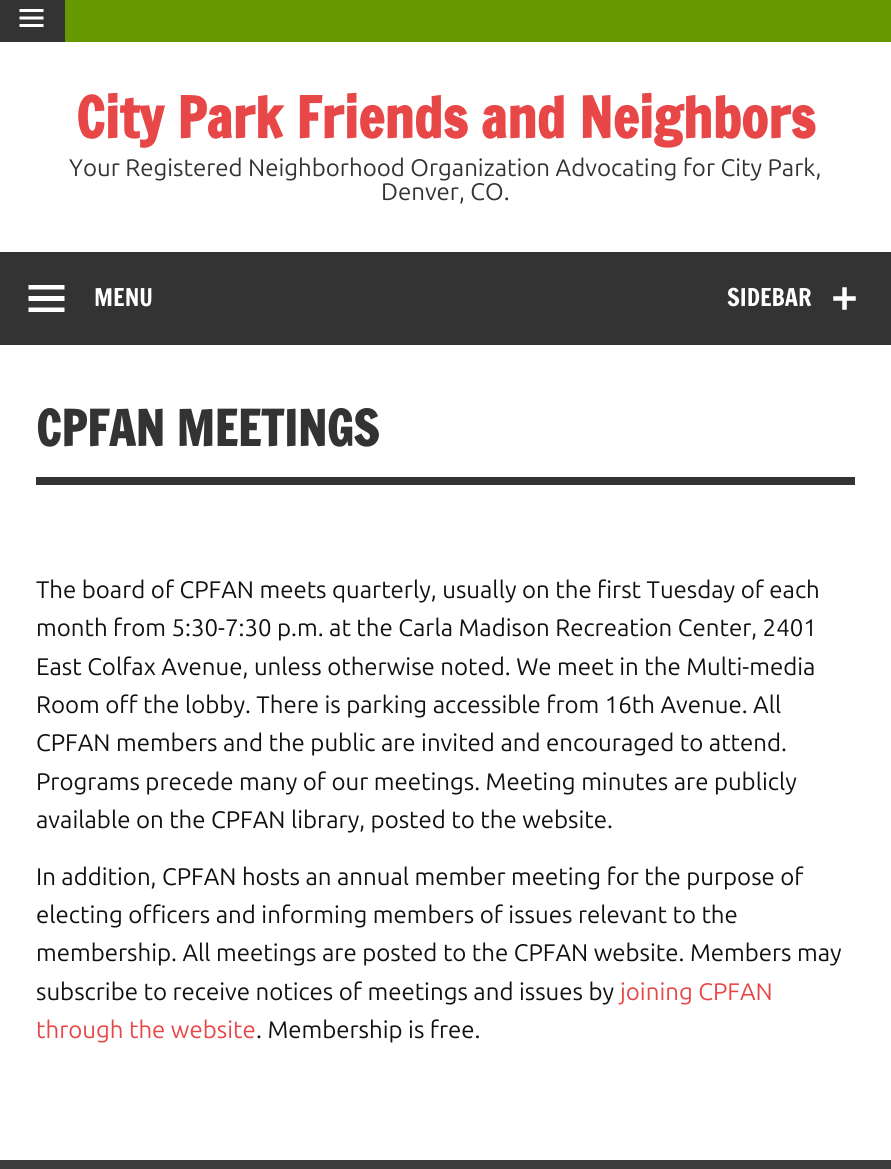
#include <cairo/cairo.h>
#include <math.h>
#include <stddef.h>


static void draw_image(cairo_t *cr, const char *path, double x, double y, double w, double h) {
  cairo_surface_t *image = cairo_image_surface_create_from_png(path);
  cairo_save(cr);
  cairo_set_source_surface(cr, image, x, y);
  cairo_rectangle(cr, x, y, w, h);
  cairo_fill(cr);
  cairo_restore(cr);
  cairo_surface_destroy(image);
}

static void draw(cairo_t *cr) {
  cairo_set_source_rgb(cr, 1, 1, 1);
  cairo_paint(cr);
  cairo_set_source_rgb(cr, 102 / 255.0, 153 / 255.0, 0);
  cairo_rectangle(cr, 65, 0, 826, 42);
  cairo_fill(cr);
  cairo_set_source_rgb(cr, 51 / 255.0, 51 / 255.0, 51 / 255.0);
  cairo_rectangle(cr, 0, 0, 65, 42);
  cairo_fill(cr);
  draw_image(cr, "images/1.png", 19, 9, 25, 18);
  cairo_rectangle(cr, 0, 252, 891, 93);
  cairo_fill(cr);
  cairo_set_source_rgb(cr, 1, 1, 1);
  cairo_new_path(cr);
  cairo_move_to(cr, 28.5, 312);
  cairo_line_to(cr, 28.5, 307.5);
  cairo_line_to(cr, 64.5, 307.5);
  cairo_line_to(cr, 64.5, 312);
  cairo_close_path(cr);
  cairo_move_to(cr, 28.5, 285);
  cairo_line_to(cr, 64.5, 285);
  cairo_line_to(cr, 64.5, 289.5);
  cairo_line_to(cr, 28.5, 289.5);
  cairo_close_path(cr);
  cairo_move_to(cr, 28.5, 301);
  cairo_line_to(cr, 28.5, 296);
  cairo_line_to(cr, 64.5, 296);
  cairo_line_to(cr, 64.5, 301);
  cairo_close_path(cr);
  cairo_fill(cr);
  draw_image(cr, "images/2.png", 833, 287, 23, 23);
  cairo_set_source_rgb(cr, 51 / 255.0, 51 / 255.0, 51 / 255.0);
  cairo_rectangle(cr, 36, 477, 819, 8);
  cairo_fill(cr);
  cairo_set_source_rgb(cr, 61 / 255.0, 61 / 255.0, 61 / 255.0);
  cairo_rectangle(cr, 0, 1160, 891, 9);
  cairo_fill(cr);
  cairo_select_font_face(cr, "Francois One", CAIRO_FONT_SLANT_NORMAL, CAIRO_FONT_WEIGHT_BOLD);
  cairo_set_font_size(cr, 55.25);
  cairo_set_source_rgb(cr, 232 / 255.0, 71 / 255.0, 71 / 255.0);
  cairo_move_to(cr, 76, 138);
  cairo_show_text(cr, "City Park Friends and Neighbors");
  cairo_select_font_face(cr, "Ubuntu", CAIRO_FONT_SLANT_NORMAL, CAIRO_FONT_WEIGHT_NORMAL);
  cairo_set_font_size(cr, 24);
  cairo_set_source_rgb(cr, 51 / 255.0, 51 / 255.0, 51 / 255.0);
  cairo_move_to(cr, 69, 176);
  cairo_show_text(cr, "Your Registered Neighborhood Organization Advocating for City Park,");
  cairo_move_to(cr, 381, 200);
  cairo_show_text(cr, "Denver, CO.");
  cairo_select_font_face(cr, "Francois One", CAIRO_FONT_SLANT_NORMAL, CAIRO_FONT_WEIGHT_NORMAL);
  cairo_set_source_rgb(cr, 1, 1, 1);
  cairo_move_to(cr, 94, 306);
  cairo_show_text(cr, "MENU");
  cairo_move_to(cr, 727, 306);
  cairo_show_text(cr, "SIDEBAR");
  cairo_select_font_face(cr, "Francois One", CAIRO_FONT_SLANT_NORMAL, CAIRO_FONT_WEIGHT_BOLD);
  cairo_set_font_size(cr, 48);
  cairo_set_source_rgb(cr, 51 / 255.0, 51 / 255.0, 51 / 255.0);
  cairo_move_to(cr, 36, 446);
  cairo_show_text(cr, "CPFAN MEETINGS");
  cairo_select_font_face(cr, "Ubuntu", CAIRO_FONT_SLANT_NORMAL, CAIRO_FONT_WEIGHT_NORMAL);
  cairo_set_font_size(cr, 24);
  cairo_set_source_rgb(cr, 17 / 255.0, 17 / 255.0, 17 / 255.0);
  cairo_move_to(cr, 36, 598);
  cairo_show_text(cr, "The board of CPFAN meets quarterly, usually on the first Tuesday of each");
  cairo_move_to(cr, 36, 636);
  cairo_show_text(cr, "month from 5:30-7:30 p.m. at the Carla Madison Recreation Center, 2401");
  cairo_move_to(cr, 36, 675);
  cairo_show_text(cr, "East Colfax Avenue, unless otherwise noted. We meet in the Multi-media");
  cairo_move_to(cr, 36, 713);
  cairo_show_text(cr, "Room off the lobby. There is parking accessible from 16th Avenue. All");
  cairo_move_to(cr, 36, 751);
  cairo_show_text(cr, "CPFAN members and the public are invited and encouraged to attend.");
  cairo_move_to(cr, 36, 790);
  cairo_show_text(cr, "Programs precede many of our meetings. Meeting minutes are publicly");
  cairo_move_to(cr, 36, 828);
  cairo_show_text(cr, "available on the CPFAN library, posted to the website.");
  cairo_move_to(cr, 36, 885);
  cairo_show_text(cr, "In addition, CPFAN hosts an annual member meeting for the purpose of");
  cairo_move_to(cr, 36, 923);
  cairo_show_text(cr, "electing officers and informing members of issues relevant to the");
  cairo_move_to(cr, 36, 961);
  cairo_show_text(cr, "membership. All meetings are posted to the CPFAN website. Members may");
  cairo_move_to(cr, 36, 1000);
  cairo_show_text(cr, "subscribe to receive notices of meetings and issues by");
  cairo_set_source_rgb(cr, 232 / 255.0, 71 / 255.0, 71 / 255.0);
  cairo_move_to(cr, 620, 1000);
  cairo_show_text(cr, "joining CPFAN");
  cairo_move_to(cr, 36, 1038);
  cairo_show_text(cr, "through the website");
  cairo_set_source_rgb(cr, 17 / 255.0, 17 / 255.0, 17 / 255.0);
  cairo_move_to(cr, 256, 1038);
  cairo_show_text(cr, ". Membership is free.");
}

int main(void) {
  cairo_surface_t *surface = cairo_image_surface_create(CAIRO_FORMAT_RGB24, 891, 1169);
  cairo_t *cr = cairo_create(surface);
  cairo_font_options_t *options = cairo_font_options_create();
  cairo_font_options_set_hint_metrics(options, CAIRO_HINT_METRICS_OFF);
  cairo_font_options_set_hint_style(options, CAIRO_HINT_STYLE_NONE);
  cairo_set_font_options(cr, options);
  cairo_set_miter_limit(cr, 4);
  draw(cr);
  cairo_surface_write_to_png(surface, "out.png");
  cairo_font_options_destroy(options);
  cairo_destroy(cr);
  cairo_surface_destroy(surface);
  return 0;
}
